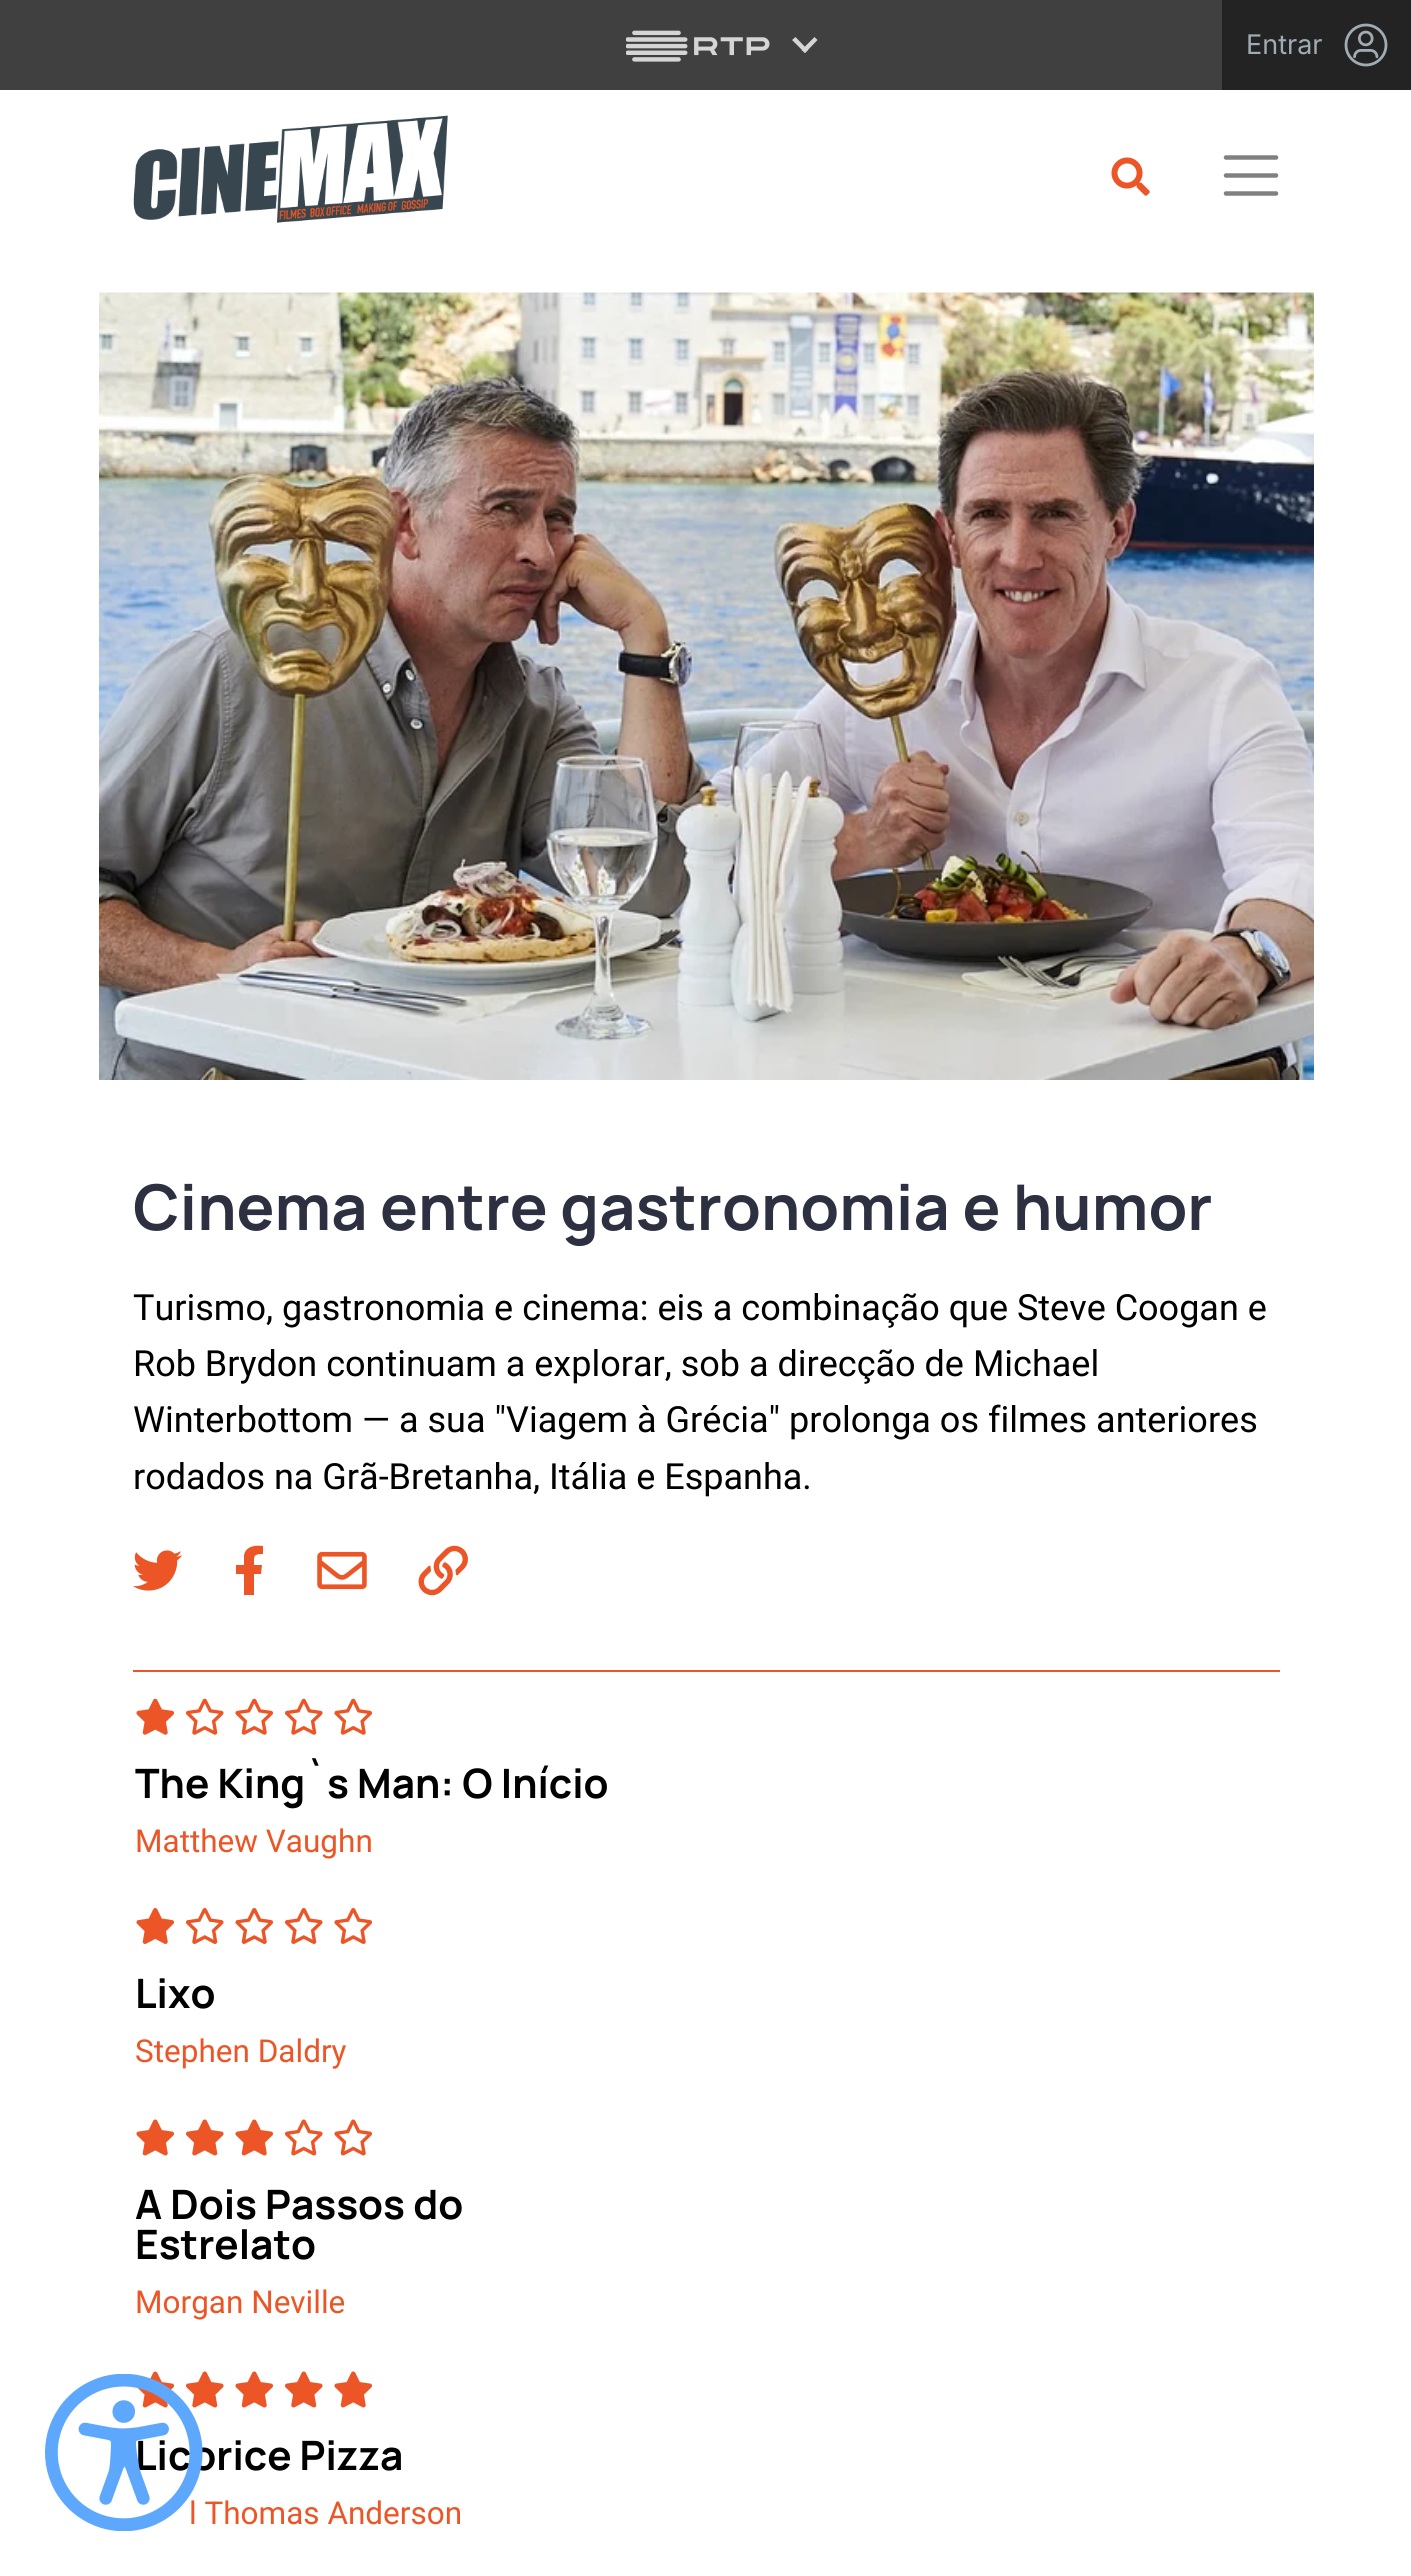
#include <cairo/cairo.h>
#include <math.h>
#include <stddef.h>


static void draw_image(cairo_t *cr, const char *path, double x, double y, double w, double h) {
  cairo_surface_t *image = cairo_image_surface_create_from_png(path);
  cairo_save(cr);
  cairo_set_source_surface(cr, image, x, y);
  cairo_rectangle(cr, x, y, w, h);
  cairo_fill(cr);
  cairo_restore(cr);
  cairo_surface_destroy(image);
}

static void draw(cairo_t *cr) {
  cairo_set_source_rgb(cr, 1, 1, 1);
  cairo_paint(cr);
  cairo_set_source_rgb(cr, 64 / 255.0, 64 / 255.0, 64 / 255.0);
  cairo_rectangle(cr, 0, 0, 1222, 90);
  cairo_fill(cr);
  draw_image(cr, "images/1.png", 626, 30, 144, 32);
  cairo_set_source_rgb(cr, 213 / 255.0, 213 / 255.0, 213 / 255.0);
  cairo_new_path(cr);
  cairo_move_to(cr, 814.5, 37);
  cairo_line_to(cr, 817.5, 40);
  cairo_line_to(cr, 805, 53);
  cairo_line_to(cr, 801.5, 50);
  cairo_close_path(cr);
  cairo_fill(cr);
  cairo_new_path(cr);
  cairo_move_to(cr, 795.5, 37);
  cairo_line_to(cr, 808, 50);
  cairo_line_to(cr, 805, 53);
  cairo_line_to(cr, 792, 40);
  cairo_close_path(cr);
  cairo_fill(cr);
  cairo_set_source_rgb(cr, 35 / 255.0, 35 / 255.0, 35 / 255.0);
  cairo_rectangle(cr, 1222, 0, 189, 90);
  cairo_fill(cr);
  draw_image(cr, "images/2.png", 1344, 23, 44, 44);
  draw_image(cr, "images/4.png", 133, 115, 315, 108);
  draw_image(cr, "images/5.png", 1111, 157, 39, 39);
  cairo_new_path(cr);
  cairo_move_to(cr, 1226, 157.5);
  cairo_line_to(cr, 1276, 157.5);
  cairo_move_to(cr, 1226, 175.5);
  cairo_line_to(cr, 1276, 175.5);
  cairo_move_to(cr, 1226, 193.5);
  cairo_line_to(cr, 1276, 193.5);
  cairo_set_source_rgb(cr, 128 / 255.0, 128 / 255.0, 128 / 255.0);
  cairo_set_line_width(cr, 4.5);
  cairo_set_line_cap(cr, CAIRO_LINE_CAP_ROUND);
  cairo_stroke(cr);
  draw_image(cr, "images/6.png", 99, 292, 1215, 788);
  draw_image(cr, "images/7.png", 133, 1550, 50, 41);
  cairo_set_source_rgb(cr, 236 / 255.0, 86 / 255.0, 38 / 255.0);
  cairo_new_path(cr);
  cairo_move_to(cr, 261, 1574);
  cairo_line_to(cr, 262, 1565);
  cairo_line_to(cr, 254, 1565);
  cairo_curve_to(cr, 254, 1556, 253, 1554, 263, 1554);
  cairo_line_to(cr, 263, 1546);
  cairo_curve_to(cr, 255, 1545, 246, 1546, 244, 1555);
  cairo_line_to(cr, 244, 1565);
  cairo_line_to(cr, 236, 1565);
  cairo_line_to(cr, 236, 1574);
  cairo_line_to(cr, 244, 1574);
  cairo_line_to(cr, 244, 1595);
  cairo_line_to(cr, 254, 1595);
  cairo_line_to(cr, 254, 1574);
  cairo_close_path(cr);
  cairo_fill(cr);
  draw_image(cr, "images/8.png", 317, 1551, 50, 39);
  draw_image(cr, "images/9.png", 418, 1545, 50, 51);
  cairo_rectangle(cr, 133, 1670, 1147, 2);
  cairo_fill(cr);
  draw_image(cr, "images/10.png", 136, 1698, 38, 37);
  draw_image(cr, "images/11.png", 186, 1698, 38, 37);
  draw_image(cr, "images/12.png", 235, 1698, 38, 37);
  draw_image(cr, "images/11.png", 285, 1698, 38, 37);
  draw_image(cr, "images/12.png", 334, 1698, 38, 37);
  draw_image(cr, "images/13.png", 136, 1908, 38, 36);
  draw_image(cr, "images/14.png", 185, 1908, 39, 36);
  draw_image(cr, "images/15.png", 235, 1908, 38, 36);
  draw_image(cr, "images/14.png", 284, 1908, 39, 36);
  draw_image(cr, "images/15.png", 334, 1908, 38, 36);
  draw_image(cr, "images/16.png", 136, 2119, 38, 37);
  draw_image(cr, "images/17.png", 185, 2119, 39, 37);
  draw_image(cr, "images/16.png", 235, 2119, 38, 37);
  draw_image(cr, "images/18.png", 284, 2119, 39, 37);
  draw_image(cr, "images/19.png", 334, 2119, 38, 37);
  draw_image(cr, "images/20.png", 137, 2371, 37, 37);
  draw_image(cr, "images/17.png", 185, 2371, 39, 37);
  draw_image(cr, "images/16.png", 235, 2371, 38, 37);
  draw_image(cr, "images/17.png", 284, 2371, 39, 37);
  draw_image(cr, "images/16.png", 334, 2371, 38, 37);
  cairo_select_font_face(cr, "Inter", CAIRO_FONT_SLANT_NORMAL, CAIRO_FONT_WEIGHT_NORMAL);
  cairo_set_font_size(cr, 27);
  cairo_set_source_rgb(cr, 160 / 255.0, 172 / 255.0, 179 / 255.0);
  cairo_move_to(cr, 1246, 54);
  cairo_show_text(cr, "Entrar");
  cairo_select_font_face(cr, "Manrope", CAIRO_FONT_SLANT_NORMAL, CAIRO_FONT_WEIGHT_BOLD);
  cairo_set_font_size(cr, 63);
  cairo_set_source_rgb(cr, 45 / 255.0, 48 / 255.0, 65 / 255.0);
  cairo_move_to(cr, 133, 1230);
  cairo_show_text(cr, "Cinema entre gastronomia e humor");
  cairo_select_font_face(cr, "Roboto", CAIRO_FONT_SLANT_NORMAL, CAIRO_FONT_WEIGHT_NORMAL);
  cairo_set_font_size(cr, 36);
  cairo_set_source_rgb(cr, 0, 0, 0);
  cairo_move_to(cr, 133, 1320);
  cairo_show_text(cr, "Turismo, gastronomia e cinema: eis a combinação que Steve Coogan e");
  cairo_move_to(cr, 133, 1376);
  cairo_show_text(cr, "Rob Brydon continuam a explorar, sob a direcção de Michael");
  cairo_move_to(cr, 133, 1432);
  cairo_show_text(cr, "Winterbottom — a sua \"Viagem à Grécia\" prolonga os filmes anteriores");
  cairo_move_to(cr, 133, 1489);
  cairo_show_text(cr, "rodados na Grã-Bretanha, Itália e Espanha.");
  cairo_select_font_face(cr, "Manrope", CAIRO_FONT_SLANT_NORMAL, CAIRO_FONT_WEIGHT_BOLD);
  cairo_set_font_size(cr, 40.5);
  cairo_move_to(cr, 135, 1798);
  cairo_show_text(cr, "The King`s Man: O Início");
  cairo_select_font_face(cr, "Roboto", CAIRO_FONT_SLANT_NORMAL, CAIRO_FONT_WEIGHT_NORMAL);
  cairo_set_font_size(cr, 31.5);
  cairo_set_source_rgb(cr, 236 / 255.0, 86 / 255.0, 38 / 255.0);
  cairo_move_to(cr, 135, 1852);
  cairo_show_text(cr, "Matthew Vaughn");
  cairo_select_font_face(cr, "Manrope", CAIRO_FONT_SLANT_NORMAL, CAIRO_FONT_WEIGHT_BOLD);
  cairo_set_font_size(cr, 40.5);
  cairo_set_source_rgb(cr, 0, 0, 0);
  cairo_move_to(cr, 135, 2008);
  cairo_show_text(cr, "Lixo");
  cairo_select_font_face(cr, "Roboto", CAIRO_FONT_SLANT_NORMAL, CAIRO_FONT_WEIGHT_NORMAL);
  cairo_set_font_size(cr, 31.5);
  cairo_set_source_rgb(cr, 236 / 255.0, 86 / 255.0, 38 / 255.0);
  cairo_move_to(cr, 135, 2062);
  cairo_show_text(cr, "Stephen Daldry");
  cairo_select_font_face(cr, "Manrope", CAIRO_FONT_SLANT_NORMAL, CAIRO_FONT_WEIGHT_BOLD);
  cairo_set_font_size(cr, 40.5);
  cairo_set_source_rgb(cr, 0, 0, 0);
  cairo_move_to(cr, 135, 2219);
  cairo_show_text(cr, "A Dois Passos do");
  cairo_move_to(cr, 135, 2259);
  cairo_show_text(cr, "Estrelato");
  cairo_select_font_face(cr, "Roboto", CAIRO_FONT_SLANT_NORMAL, CAIRO_FONT_WEIGHT_NORMAL);
  cairo_set_font_size(cr, 31.5);
  cairo_set_source_rgb(cr, 236 / 255.0, 86 / 255.0, 38 / 255.0);
  cairo_move_to(cr, 135, 2313);
  cairo_show_text(cr, "Morgan Neville");
  cairo_select_font_face(cr, "Manrope", CAIRO_FONT_SLANT_NORMAL, CAIRO_FONT_WEIGHT_BOLD);
  cairo_set_font_size(cr, 40.5);
  cairo_set_source_rgb(cr, 0, 0, 0);
  cairo_move_to(cr, 135, 2470);
  cairo_show_text(cr, "Licorice Pizza");
  cairo_select_font_face(cr, "Roboto", CAIRO_FONT_SLANT_NORMAL, CAIRO_FONT_WEIGHT_NORMAL);
  cairo_set_font_size(cr, 31.5);
  cairo_set_source_rgb(cr, 236 / 255.0, 86 / 255.0, 38 / 255.0);
  cairo_move_to(cr, 189, 2524);
  cairo_show_text(cr, "l Thomas Anderson");
  draw_image(cr, "images/3.png", 45, 2374, 158, 157);
}

int main(void) {
  cairo_surface_t *surface = cairo_image_surface_create(CAIRO_FORMAT_RGB24, 1411, 2576);
  cairo_t *cr = cairo_create(surface);
  cairo_font_options_t *options = cairo_font_options_create();
  cairo_font_options_set_hint_metrics(options, CAIRO_HINT_METRICS_OFF);
  cairo_font_options_set_hint_style(options, CAIRO_HINT_STYLE_NONE);
  cairo_set_font_options(cr, options);
  cairo_set_miter_limit(cr, 4);
  draw(cr);
  cairo_surface_write_to_png(surface, "out.png");
  cairo_font_options_destroy(options);
  cairo_destroy(cr);
  cairo_surface_destroy(surface);
  return 0;
}
